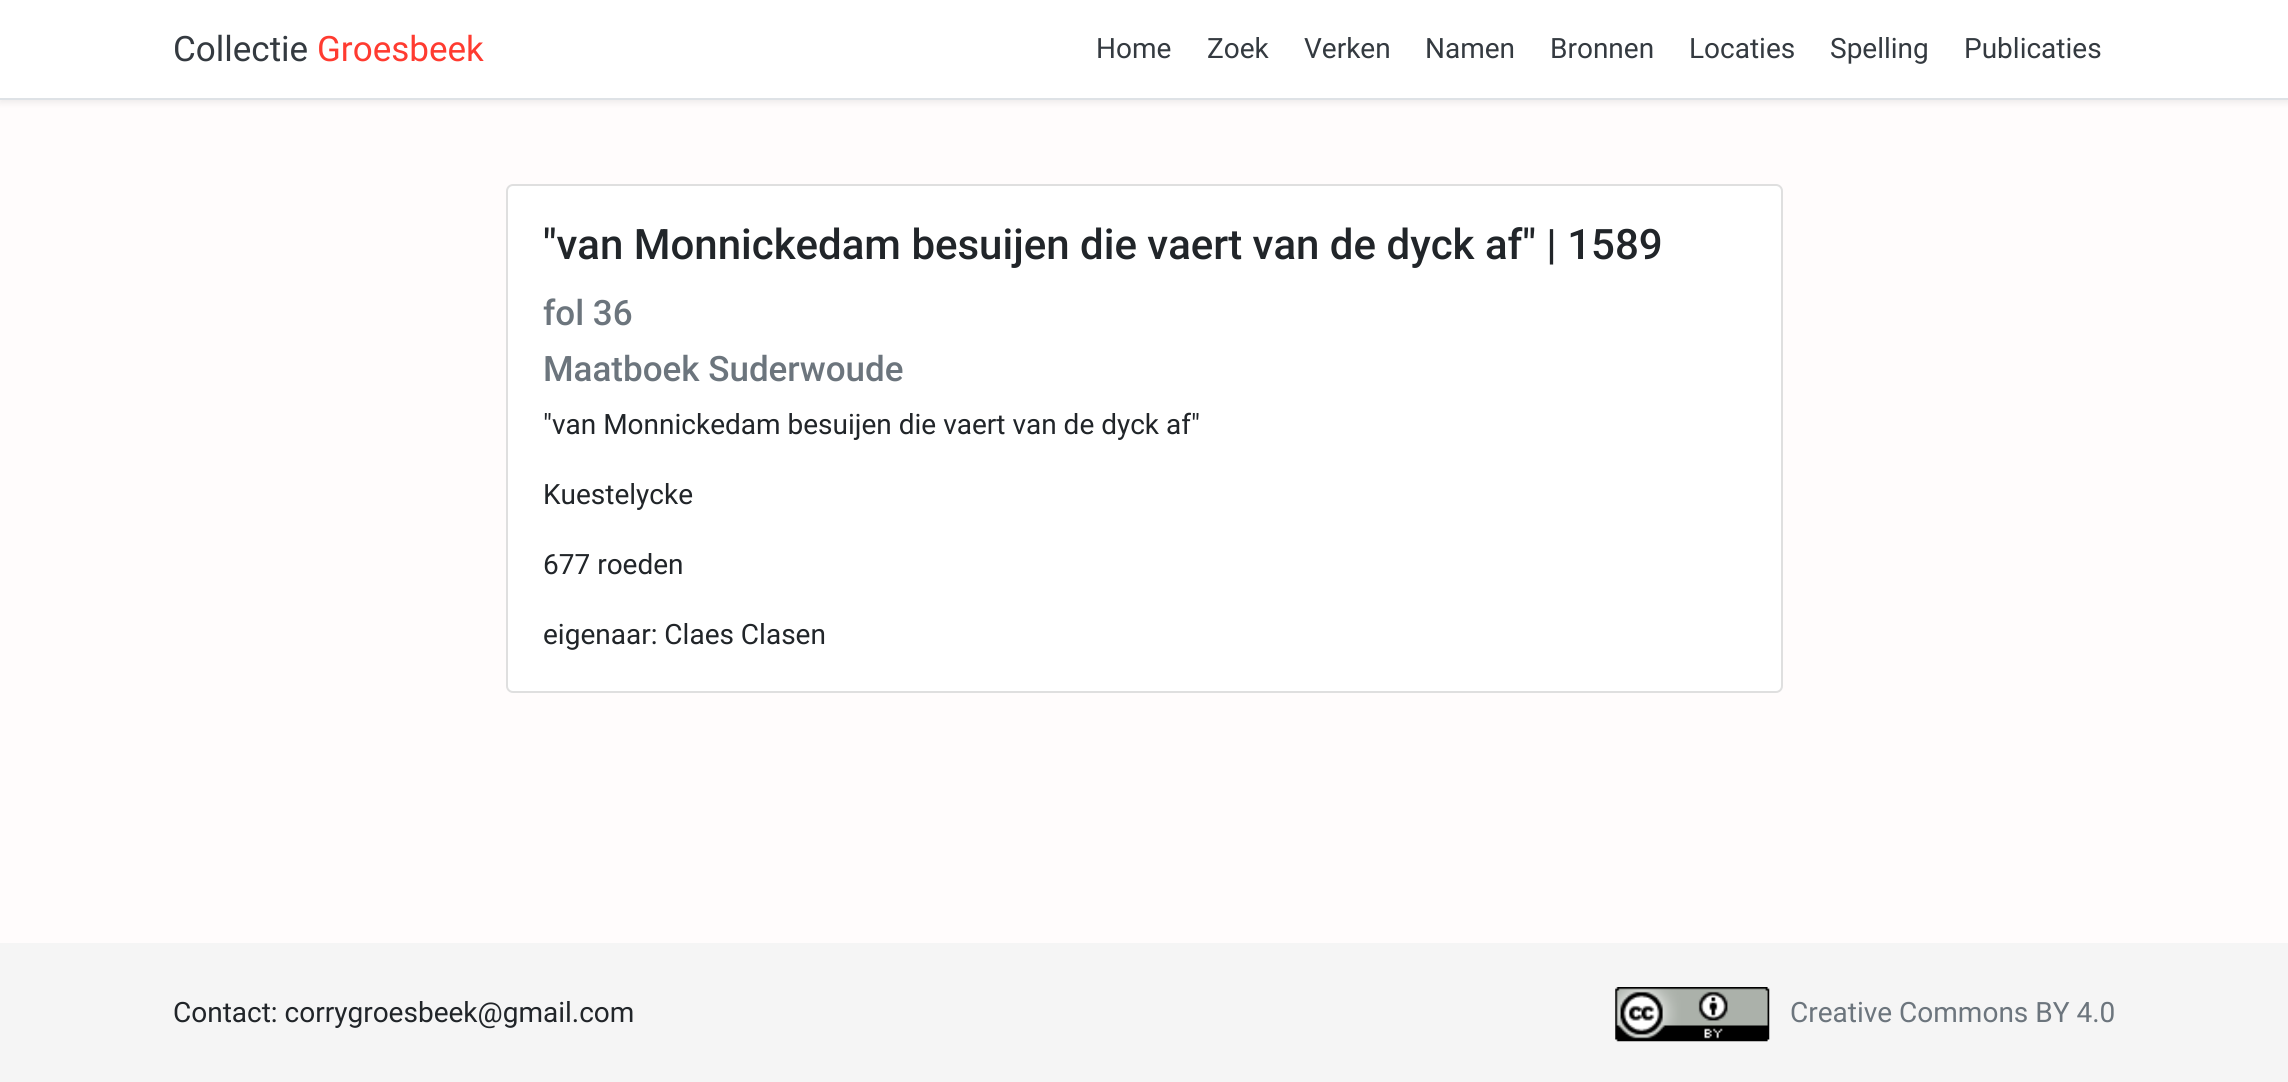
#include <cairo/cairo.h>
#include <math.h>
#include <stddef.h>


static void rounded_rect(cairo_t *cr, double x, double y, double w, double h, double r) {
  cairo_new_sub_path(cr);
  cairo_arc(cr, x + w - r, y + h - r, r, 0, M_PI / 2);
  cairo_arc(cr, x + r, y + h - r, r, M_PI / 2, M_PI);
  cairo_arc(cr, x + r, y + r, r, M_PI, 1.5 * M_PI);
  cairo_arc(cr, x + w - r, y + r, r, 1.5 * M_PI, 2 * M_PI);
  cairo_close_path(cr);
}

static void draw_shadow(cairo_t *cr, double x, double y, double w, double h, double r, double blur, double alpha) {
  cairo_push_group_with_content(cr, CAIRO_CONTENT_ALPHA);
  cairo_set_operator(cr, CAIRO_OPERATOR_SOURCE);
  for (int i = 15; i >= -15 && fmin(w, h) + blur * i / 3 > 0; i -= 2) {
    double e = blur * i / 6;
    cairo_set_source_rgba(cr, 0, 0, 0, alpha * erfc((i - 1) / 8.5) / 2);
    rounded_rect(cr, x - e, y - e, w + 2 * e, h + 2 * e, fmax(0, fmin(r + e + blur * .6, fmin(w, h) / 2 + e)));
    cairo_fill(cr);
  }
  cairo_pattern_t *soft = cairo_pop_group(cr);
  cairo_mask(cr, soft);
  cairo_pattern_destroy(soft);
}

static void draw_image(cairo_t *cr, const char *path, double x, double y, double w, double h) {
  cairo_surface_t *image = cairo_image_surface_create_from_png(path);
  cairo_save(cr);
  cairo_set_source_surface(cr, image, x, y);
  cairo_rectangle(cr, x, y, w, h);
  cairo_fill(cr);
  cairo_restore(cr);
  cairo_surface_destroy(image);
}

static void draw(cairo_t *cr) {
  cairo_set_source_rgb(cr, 1, 252 / 255.0, 252 / 255.0);
  cairo_paint(cr);
  cairo_set_source_rgb(cr, 0, 0, 0);
  draw_shadow(cr, 0, 4, 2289, 99, 0, 3.5, 0.07);
  cairo_set_source_rgb(cr, 1, 1, 1);
  cairo_rectangle(cr, 0, 0, 2288, 98);
  cairo_fill(cr);
  cairo_set_source_rgb(cr, 222 / 255.0, 226 / 255.0, 230 / 255.0);
  cairo_rectangle(cr, 0, 98, 2288, 2);
  cairo_fill(cr);
  cairo_set_source_rgb(cr, 1, 1, 1);
  rounded_rect(cr, 507, 185, 1275, 507, 6);
  cairo_fill_preserve(cr);
  cairo_set_source_rgb(cr, 223 / 255.0, 223 / 255.0, 223 / 255.0);
  cairo_stroke(cr);
  cairo_set_source_rgb(cr, 245 / 255.0, 245 / 255.0, 245 / 255.0);
  cairo_rectangle(cr, 0, 943, 2288, 139);
  cairo_fill(cr);
  draw_image(cr, "images/1.png", 1615, 987, 155, 55);
  cairo_select_font_face(cr, "Roboto", CAIRO_FONT_SLANT_NORMAL, CAIRO_FONT_WEIGHT_NORMAL);
  cairo_set_font_size(cr, 35);
  cairo_set_source_rgb(cr, 52 / 255.0, 58 / 255.0, 64 / 255.0);
  cairo_move_to(cr, 173, 61);
  cairo_show_text(cr, "Collectie");
  cairo_set_source_rgb(cr, 1, 59 / 255.0, 48 / 255.0);
  cairo_move_to(cr, 317, 61);
  cairo_show_text(cr, "Groesbeek");
  cairo_set_font_size(cr, 28);
  cairo_set_source_rgb(cr, 52 / 255.0, 58 / 255.0, 64 / 255.0);
  cairo_move_to(cr, 1096, 58);
  cairo_show_text(cr, "Home");
  cairo_move_to(cr, 1207, 58);
  cairo_show_text(cr, "Zoek");
  cairo_move_to(cr, 1304, 58);
  cairo_show_text(cr, "Verken");
  cairo_move_to(cr, 1425, 58);
  cairo_show_text(cr, "Namen");
  cairo_move_to(cr, 1550, 58);
  cairo_show_text(cr, "Bronnen");
  cairo_move_to(cr, 1689, 58);
  cairo_show_text(cr, "Locaties");
  cairo_move_to(cr, 1830, 58);
  cairo_show_text(cr, "Spelling");
  cairo_move_to(cr, 1964, 58);
  cairo_show_text(cr, "Publicaties");
  cairo_select_font_face(cr, "Roboto Medium", CAIRO_FONT_SLANT_NORMAL, CAIRO_FONT_WEIGHT_NORMAL);
  cairo_set_font_size(cr, 42);
  cairo_set_source_rgb(cr, 33 / 255.0, 37 / 255.0, 41 / 255.0);
  cairo_move_to(cr, 543, 259);
  cairo_show_text(cr, "\"van Monnickedam besuijen die vaert van de dyck af\" | 1589");
  cairo_set_font_size(cr, 35);
  cairo_set_source_rgb(cr, 108 / 255.0, 117 / 255.0, 125 / 255.0);
  cairo_move_to(cr, 543, 325);
  cairo_show_text(cr, "fol 36");
  cairo_move_to(cr, 543, 381);
  cairo_show_text(cr, "Maatboek Suderwoude");
  cairo_select_font_face(cr, "Roboto", CAIRO_FONT_SLANT_NORMAL, CAIRO_FONT_WEIGHT_NORMAL);
  cairo_set_font_size(cr, 28);
  cairo_set_source_rgb(cr, 33 / 255.0, 37 / 255.0, 41 / 255.0);
  cairo_move_to(cr, 543, 434);
  cairo_show_text(cr, "\"van Monnickedam besuijen die vaert van de dyck af\"");
  cairo_move_to(cr, 543, 504);
  cairo_show_text(cr, "Kuestelycke");
  cairo_move_to(cr, 543, 574);
  cairo_show_text(cr, "677 roeden");
  cairo_move_to(cr, 543, 644);
  cairo_show_text(cr, "eigenaar: Claes Clasen");
  cairo_move_to(cr, 173, 1022);
  cairo_show_text(cr, "Contact: corrygroesbeek@gmail.com");
  cairo_set_source_rgb(cr, 108 / 255.0, 117 / 255.0, 125 / 255.0);
  cairo_move_to(cr, 1790, 1022);
  cairo_show_text(cr, "Creative Commons BY 4.0");
}

int main(void) {
  cairo_surface_t *surface = cairo_image_surface_create(CAIRO_FORMAT_RGB24, 2288, 1082);
  cairo_t *cr = cairo_create(surface);
  cairo_font_options_t *options = cairo_font_options_create();
  cairo_font_options_set_hint_metrics(options, CAIRO_HINT_METRICS_OFF);
  cairo_font_options_set_hint_style(options, CAIRO_HINT_STYLE_NONE);
  cairo_set_font_options(cr, options);
  cairo_set_miter_limit(cr, 4);
  draw(cr);
  cairo_surface_write_to_png(surface, "out.png");
  cairo_font_options_destroy(options);
  cairo_destroy(cr);
  cairo_surface_destroy(surface);
  return 0;
}
